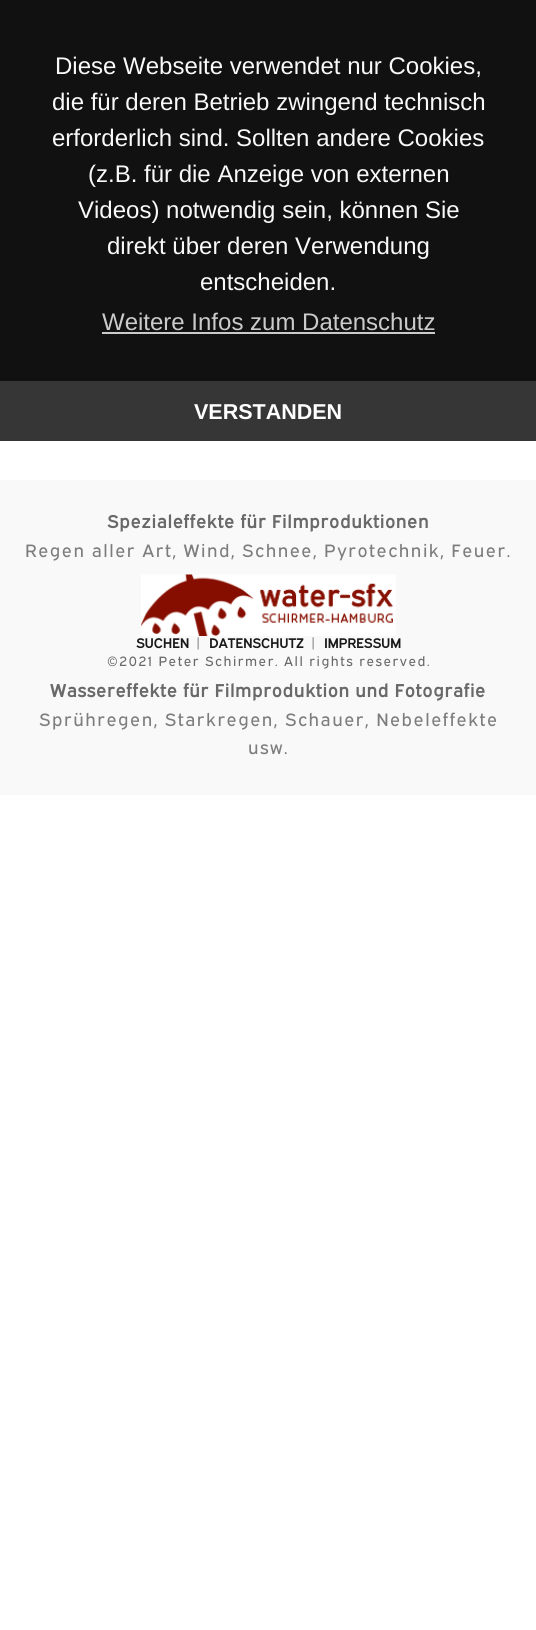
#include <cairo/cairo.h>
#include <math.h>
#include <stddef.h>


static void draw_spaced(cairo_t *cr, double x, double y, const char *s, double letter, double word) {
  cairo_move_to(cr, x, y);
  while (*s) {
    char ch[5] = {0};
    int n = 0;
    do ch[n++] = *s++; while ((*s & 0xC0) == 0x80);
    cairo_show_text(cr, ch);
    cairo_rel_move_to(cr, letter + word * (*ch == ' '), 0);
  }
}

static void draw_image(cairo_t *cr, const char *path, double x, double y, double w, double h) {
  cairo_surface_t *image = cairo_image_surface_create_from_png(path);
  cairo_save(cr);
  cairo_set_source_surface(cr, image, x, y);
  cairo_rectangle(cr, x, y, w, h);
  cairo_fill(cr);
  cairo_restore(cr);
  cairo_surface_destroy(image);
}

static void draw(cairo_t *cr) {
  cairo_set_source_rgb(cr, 1, 1, 1);
  cairo_paint(cr);
  cairo_set_source_rgb(cr, 17 / 255.0, 17 / 255.0, 17 / 255.0);
  cairo_rectangle(cr, 0, 0, 536, 381);
  cairo_fill(cr);
  cairo_set_source_rgb(cr, 203 / 255.0, 203 / 255.0, 203 / 255.0);
  cairo_rectangle(cr, 102, 332, 333, 2);
  cairo_fill(cr);
  cairo_set_source_rgb(cr, 54 / 255.0, 54 / 255.0, 54 / 255.0);
  cairo_rectangle(cr, 0, 381, 536, 60);
  cairo_fill(cr);
  cairo_set_source_rgb(cr, 249 / 255.0, 249 / 255.0, 249 / 255.0);
  cairo_rectangle(cr, 0, 480, 536, 315);
  cairo_fill(cr);
  draw_image(cr, "images/1.png", 141, 574, 255, 62);
  cairo_select_font_face(cr, "Liberation Sans", CAIRO_FONT_SLANT_NORMAL, CAIRO_FONT_WEIGHT_NORMAL);
  cairo_set_font_size(cr, 24);
  cairo_move_to(cr, 55, 74);
  cairo_show_text(cr, "Diese Webseite verwendet nur Cookies,");
  cairo_move_to(cr, 52, 110);
  cairo_show_text(cr, "die für deren Betrieb zwingend technisch");
  cairo_move_to(cr, 52, 146);
  cairo_show_text(cr, "erforderlich sind. Sollten andere Cookies");
  cairo_move_to(cr, 88, 182);
  cairo_show_text(cr, "(z.B. für die Anzeige von externen");
  cairo_move_to(cr, 78, 218);
  cairo_show_text(cr, "Videos) notwendig sein, können Sie");
  cairo_move_to(cr, 107, 254);
  cairo_show_text(cr, "direkt über deren Verwendung");
  cairo_move_to(cr, 200, 290);
  cairo_show_text(cr, "entscheiden.");
  cairo_set_source_rgb(cr, 203 / 255.0, 203 / 255.0, 203 / 255.0);
  cairo_move_to(cr, 102, 330);
  cairo_show_text(cr, "Weitere Infos zum Datenschutz");
  cairo_select_font_face(cr, "Liberation Sans", CAIRO_FONT_SLANT_NORMAL, CAIRO_FONT_WEIGHT_BOLD);
  cairo_set_font_size(cr, 21.5);
  cairo_set_source_rgb(cr, 1, 1, 1);
  cairo_move_to(cr, 194, 419);
  cairo_show_text(cr, "VERSTANDEN");
  cairo_select_font_face(cr, "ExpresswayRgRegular", CAIRO_FONT_SLANT_NORMAL, CAIRO_FONT_WEIGHT_BOLD);
  cairo_set_font_size(cr, 18);
  cairo_set_source_rgb(cr, 105 / 255.0, 105 / 255.0, 105 / 255.0);
  draw_spaced(cr, 107, 528, "Spezialeffekte für Filmproduktionen", 0.75, 0);
  cairo_select_font_face(cr, "ExpresswayRgRegular", CAIRO_FONT_SLANT_NORMAL, CAIRO_FONT_WEIGHT_NORMAL);
  cairo_set_source_rgb(cr, 125 / 255.0, 125 / 255.0, 125 / 255.0);
  draw_spaced(cr, 25, 557, "Regen aller Art, Wind, Schnee, Pyrotechnik, Feuer.", 1.5, 0);
  cairo_select_font_face(cr, "ExpresswayRgRegular", CAIRO_FONT_SLANT_NORMAL, CAIRO_FONT_WEIGHT_BOLD);
  cairo_set_font_size(cr, 13.5);
  cairo_set_source_rgb(cr, 25 / 255.0, 25 / 255.0, 25 / 255.0);
  cairo_move_to(cr, 136, 648);
  cairo_show_text(cr, "SUCHEN");
  cairo_select_font_face(cr, "ExpresswayRgRegular", CAIRO_FONT_SLANT_NORMAL, CAIRO_FONT_WEIGHT_NORMAL);
  cairo_set_source_rgb(cr, 105 / 255.0, 105 / 255.0, 105 / 255.0);
  draw_spaced(cr, 194, 648, "|", 1.5, 0);
  cairo_select_font_face(cr, "ExpresswayRgRegular", CAIRO_FONT_SLANT_NORMAL, CAIRO_FONT_WEIGHT_BOLD);
  cairo_set_source_rgb(cr, 25 / 255.0, 25 / 255.0, 25 / 255.0);
  cairo_move_to(cr, 209, 648);
  cairo_show_text(cr, "DATENSCHUTZ");
  cairo_select_font_face(cr, "ExpresswayRgRegular", CAIRO_FONT_SLANT_NORMAL, CAIRO_FONT_WEIGHT_NORMAL);
  cairo_set_source_rgb(cr, 105 / 255.0, 105 / 255.0, 105 / 255.0);
  draw_spaced(cr, 309, 648, "|", 1.5, 0);
  cairo_select_font_face(cr, "ExpresswayRgRegular", CAIRO_FONT_SLANT_NORMAL, CAIRO_FONT_WEIGHT_BOLD);
  cairo_set_source_rgb(cr, 25 / 255.0, 25 / 255.0, 25 / 255.0);
  cairo_move_to(cr, 324, 648);
  cairo_show_text(cr, "IMPRESSUM");
  cairo_select_font_face(cr, "ExpresswayRgRegular", CAIRO_FONT_SLANT_NORMAL, CAIRO_FONT_WEIGHT_NORMAL);
  cairo_set_source_rgb(cr, 105 / 255.0, 105 / 255.0, 105 / 255.0);
  draw_spaced(cr, 107, 666, "©2021 Peter Schirmer. All rights reserved.", 1.5, 0);
  cairo_select_font_face(cr, "ExpresswayRgRegular", CAIRO_FONT_SLANT_NORMAL, CAIRO_FONT_WEIGHT_BOLD);
  cairo_set_font_size(cr, 18);
  draw_spaced(cr, 50, 697, "Wassereffekte für Filmproduktion und Fotografie", 0.75, 0);
  cairo_select_font_face(cr, "ExpresswayRgRegular", CAIRO_FONT_SLANT_NORMAL, CAIRO_FONT_WEIGHT_NORMAL);
  cairo_set_source_rgb(cr, 125 / 255.0, 125 / 255.0, 125 / 255.0);
  draw_spaced(cr, 39, 726, "Sprühregen, Starkregen, Schauer, Nebeleffekte", 1.5, 0);
  draw_spaced(cr, 248, 754, "usw.", 1.5, 0);
}

int main(void) {
  cairo_surface_t *surface = cairo_image_surface_create(CAIRO_FORMAT_RGB24, 536, 1630);
  cairo_t *cr = cairo_create(surface);
  cairo_font_options_t *options = cairo_font_options_create();
  cairo_font_options_set_hint_metrics(options, CAIRO_HINT_METRICS_OFF);
  cairo_font_options_set_hint_style(options, CAIRO_HINT_STYLE_NONE);
  cairo_set_font_options(cr, options);
  cairo_set_miter_limit(cr, 4);
  draw(cr);
  cairo_surface_write_to_png(surface, "out.png");
  cairo_font_options_destroy(options);
  cairo_destroy(cr);
  cairo_surface_destroy(surface);
  return 0;
}
